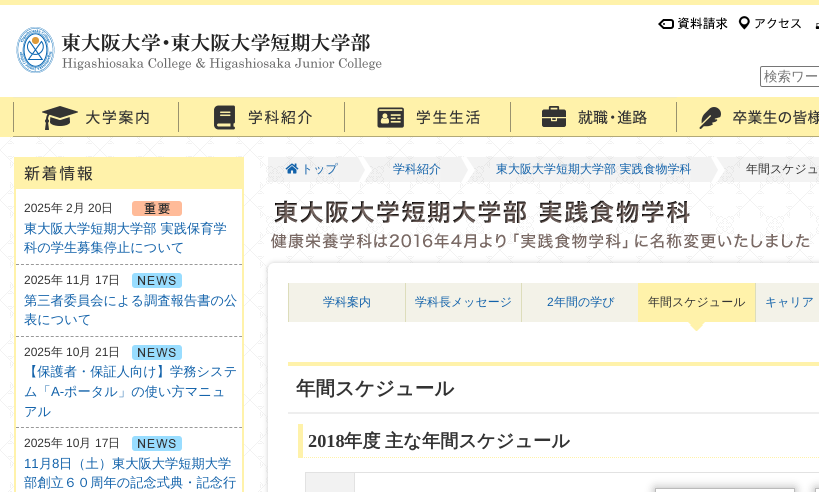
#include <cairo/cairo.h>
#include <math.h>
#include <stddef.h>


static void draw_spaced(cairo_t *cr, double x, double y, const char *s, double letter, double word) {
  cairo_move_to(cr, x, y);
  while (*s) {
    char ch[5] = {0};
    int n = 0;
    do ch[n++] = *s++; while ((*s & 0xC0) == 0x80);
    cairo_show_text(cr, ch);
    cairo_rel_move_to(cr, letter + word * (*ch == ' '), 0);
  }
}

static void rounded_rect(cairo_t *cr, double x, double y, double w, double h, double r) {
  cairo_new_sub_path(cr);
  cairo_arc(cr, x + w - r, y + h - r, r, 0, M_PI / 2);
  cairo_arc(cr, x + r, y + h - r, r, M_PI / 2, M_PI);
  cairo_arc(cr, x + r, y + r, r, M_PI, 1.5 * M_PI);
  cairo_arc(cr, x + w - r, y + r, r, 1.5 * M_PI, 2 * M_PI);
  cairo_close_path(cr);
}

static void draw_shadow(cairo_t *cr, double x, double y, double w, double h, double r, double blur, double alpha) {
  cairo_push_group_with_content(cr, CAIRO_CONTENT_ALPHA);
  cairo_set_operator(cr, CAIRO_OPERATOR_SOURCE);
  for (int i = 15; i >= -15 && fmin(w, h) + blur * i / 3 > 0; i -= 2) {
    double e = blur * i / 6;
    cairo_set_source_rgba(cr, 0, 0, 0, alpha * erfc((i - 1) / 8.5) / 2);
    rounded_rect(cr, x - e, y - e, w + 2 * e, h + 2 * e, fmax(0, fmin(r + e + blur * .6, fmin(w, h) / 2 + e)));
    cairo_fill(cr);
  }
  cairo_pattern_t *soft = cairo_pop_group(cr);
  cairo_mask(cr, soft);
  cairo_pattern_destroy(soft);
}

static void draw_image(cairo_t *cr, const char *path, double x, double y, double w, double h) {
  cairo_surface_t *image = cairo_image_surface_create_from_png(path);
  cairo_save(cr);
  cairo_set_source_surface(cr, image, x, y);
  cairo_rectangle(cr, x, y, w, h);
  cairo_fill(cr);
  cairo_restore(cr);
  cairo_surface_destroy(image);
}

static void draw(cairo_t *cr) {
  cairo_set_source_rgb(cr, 1, 1, 1);
  cairo_paint(cr);
  draw_image(cr, "images/1.png", 0, 137, 819, 355);
  cairo_set_source_rgb(cr, 1, 242 / 255.0, 170 / 255.0);
  cairo_rectangle(cr, 0, 0, 819, 5);
  cairo_fill(cr);
  draw_image(cr, "images/2.png", 16, 27, 366, 46);
  draw_image(cr, "images/3.png", 658, 17, 70, 13);
  draw_image(cr, "images/4.png", 738, 16, 63, 14);
  draw_image(cr, "images/5.png", 815, 23, 4, 6);
  rounded_rect(cr, 760.5, 66.5, 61, 20, 1.5);
  cairo_set_source_rgb(cr, 118 / 255.0, 118 / 255.0, 118 / 255.0);
  cairo_set_line_width(cr, 1);
  cairo_stroke(cr);
  cairo_set_source_rgb(cr, 1, 242 / 255.0, 170 / 255.0);
  cairo_rectangle(cr, 0, 97, 819, 40);
  cairo_fill(cr);
  draw_image(cr, "images/6.png", 13, 97, 166, 40);
  draw_image(cr, "images/7.png", 179, 97, 166, 40);
  draw_image(cr, "images/8.png", 345, 97, 166, 40);
  draw_image(cr, "images/9.png", 511, 97, 166, 40);
  draw_image(cr, "images/10.png", 677, 107, 142, 30);
  cairo_rectangle(cr, 14, 157, 230, 30);
  cairo_fill(cr);
  draw_image(cr, "images/11.png", 24, 165, 69, 16);
  cairo_set_source_rgb(cr, 1, 1, 1);
  cairo_rectangle(cr, 15, 188, 228, 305);
  cairo_fill_preserve(cr);
  cairo_set_source_rgb(cr, 1, 242 / 255.0, 170 / 255.0);
  cairo_set_line_width(cr, 2);
  cairo_stroke(cr);
  cairo_new_path(cr);
  cairo_move_to(cr, 16, 264.5);
  cairo_line_to(cr, 242, 264.5);
  cairo_set_source_rgb(cr, 153 / 255.0, 153 / 255.0, 153 / 255.0);
  cairo_set_line_width(cr, 1);
  cairo_set_dash(cr, (double[]){3, 1.96}, 2, 0);
  cairo_stroke(cr);
  draw_image(cr, "images/12.png", 132, 201, 50, 15);
  cairo_new_path(cr);
  cairo_move_to(cr, 16, 336.5);
  cairo_line_to(cr, 242, 336.5);
  cairo_stroke(cr);
  draw_image(cr, "images/13.png", 132, 273, 50, 15);
  cairo_new_path(cr);
  cairo_move_to(cr, 16, 427.5);
  cairo_line_to(cr, 242, 427.5);
  cairo_stroke(cr);
  draw_image(cr, "images/13.png", 132, 345, 50, 15);
  draw_image(cr, "images/13.png", 132, 436, 50, 15);
  cairo_set_source_rgba(cr, 0, 0, 0, 0.05);
  cairo_rectangle(cr, 268, 157, 70, 25);
  cairo_fill(cr);
  cairo_rectangle(cr, 363, 157, 78, 25);
  cairo_fill(cr);
  cairo_save(cr);
  cairo_rectangle(cr, 268, 157, 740, 25);
  cairo_clip(cr);
  cairo_set_source_rgb(cr, 1, 1, 1);
  cairo_new_path(cr);
  cairo_move_to(cr, 339, 220);
  cairo_line_to(cr, 339, 120);
  cairo_line_to(cr, 372, 170);
  cairo_close_path(cr);
  cairo_fill(cr);
  cairo_set_source_rgb(cr, 242 / 255.0, 242 / 255.0, 242 / 255.0);
  cairo_new_path(cr);
  cairo_move_to(cr, 338, 220);
  cairo_line_to(cr, 338, 120);
  cairo_line_to(cr, 365, 170);
  cairo_close_path(cr);
  cairo_fill(cr);
  cairo_restore(cr);
  draw_image(cr, "images/14.png", 285, 163, 14, 11);
  cairo_rectangle(cr, 466, 157, 225, 25);
  cairo_fill(cr);
  cairo_save(cr);
  cairo_rectangle(cr, 268, 157, 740, 25);
  cairo_clip(cr);
  cairo_set_source_rgb(cr, 1, 1, 1);
  cairo_new_path(cr);
  cairo_move_to(cr, 442, 220);
  cairo_line_to(cr, 442, 120);
  cairo_line_to(cr, 475, 170);
  cairo_close_path(cr);
  cairo_fill(cr);
  cairo_set_source_rgb(cr, 242 / 255.0, 242 / 255.0, 242 / 255.0);
  cairo_new_path(cr);
  cairo_move_to(cr, 441, 220);
  cairo_line_to(cr, 441, 120);
  cairo_line_to(cr, 468, 170);
  cairo_close_path(cr);
  cairo_fill(cr);
  cairo_restore(cr);
  cairo_rectangle(cr, 716, 157, 103, 25);
  cairo_fill(cr);
  cairo_save(cr);
  cairo_rectangle(cr, 268, 157, 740, 25);
  cairo_clip(cr);
  cairo_set_source_rgb(cr, 1, 1, 1);
  cairo_new_path(cr);
  cairo_move_to(cr, 692, 220);
  cairo_line_to(cr, 692, 120);
  cairo_line_to(cr, 725, 170);
  cairo_close_path(cr);
  cairo_fill(cr);
  cairo_set_source_rgb(cr, 242 / 255.0, 242 / 255.0, 242 / 255.0);
  cairo_new_path(cr);
  cairo_move_to(cr, 691, 220);
  cairo_line_to(cr, 691, 120);
  cairo_line_to(cr, 718, 170);
  cairo_close_path(cr);
  cairo_fill(cr);
  cairo_restore(cr);
  draw_image(cr, "images/15.png", 271, 200, 539, 49);
  cairo_set_source_rgb(cr, 204 / 255.0, 204 / 255.0, 204 / 255.0);
  draw_shadow(cr, 268, 263, 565, 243, 6, 2.5, 1);
  cairo_set_source_rgb(cr, 1, 1, 1);
  rounded_rect(cr, 268, 263, 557, 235, 6);
  cairo_fill(cr);
  cairo_set_source_rgb(cr, 243 / 255.0, 242 / 255.0, 232 / 255.0);
  cairo_rectangle(cr, 289, 283, 116, 39);
  cairo_fill(cr);
  cairo_set_source_rgb(cr, 221 / 255.0, 221 / 255.0, 187 / 255.0);
  cairo_rectangle(cr, 288, 283, 1, 39);
  cairo_fill(cr);
  cairo_set_source_rgb(cr, 243 / 255.0, 242 / 255.0, 232 / 255.0);
  cairo_rectangle(cr, 406, 283, 115, 39);
  cairo_fill(cr);
  cairo_set_source_rgb(cr, 221 / 255.0, 221 / 255.0, 187 / 255.0);
  cairo_rectangle(cr, 405, 283, 1, 39);
  cairo_fill(cr);
  cairo_set_source_rgb(cr, 243 / 255.0, 242 / 255.0, 232 / 255.0);
  cairo_rectangle(cr, 522, 283, 116, 39);
  cairo_fill(cr);
  cairo_set_source_rgb(cr, 221 / 255.0, 221 / 255.0, 187 / 255.0);
  cairo_rectangle(cr, 521, 283, 1, 39);
  cairo_fill(cr);
  draw_image(cr, "images/16.png", 638, 283, 117, 48);
  cairo_set_source_rgb(cr, 243 / 255.0, 242 / 255.0, 232 / 255.0);
  cairo_rectangle(cr, 756, 283, 63, 39);
  cairo_fill(cr);
  cairo_set_source_rgb(cr, 221 / 255.0, 221 / 255.0, 187 / 255.0);
  cairo_rectangle(cr, 755, 283, 1, 39);
  cairo_fill(cr);
  cairo_set_source_rgb(cr, 1, 242 / 255.0, 170 / 255.0);
  cairo_rectangle(cr, 288, 362, 531, 4);
  cairo_fill(cr);
  cairo_set_source_rgb(cr, 238 / 255.0, 238 / 255.0, 238 / 255.0);
  cairo_rectangle(cr, 288, 412, 531, 2);
  cairo_fill(cr);
  cairo_new_path(cr);
  cairo_move_to(cr, 298, 457.5);
  cairo_line_to(cr, 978, 457.5);
  cairo_set_source_rgb(cr, 1, 242 / 255.0, 170 / 255.0);
  cairo_set_dash(cr, (double[]){1, 1}, 2, 0);
  cairo_stroke(cr);
  cairo_rectangle(cr, 298, 424, 5, 34);
  cairo_fill(cr);
  cairo_set_source_rgb(cr, 242 / 255.0, 242 / 255.0, 242 / 255.0);
  cairo_rectangle(cr, 306, 473, 48, 19);
  cairo_fill(cr);
  cairo_set_source_rgb(cr, 226 / 255.0, 226 / 255.0, 226 / 255.0);
  cairo_rectangle(cr, 354, 472, 465, 1);
  cairo_fill(cr);
  cairo_rectangle(cr, 354, 472, 1, 20);
  cairo_fill(cr);
  cairo_rectangle(cr, 305, 472, 50, 1);
  cairo_fill(cr);
  cairo_rectangle(cr, 305, 472, 1, 20);
  cairo_fill(cr);
  cairo_save(cr);
  cairo_set_fill_rule(cr, CAIRO_FILL_RULE_EVEN_ODD);
  cairo_new_path(cr);
  cairo_move_to(cr, 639, 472);
  cairo_line_to(cr, 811, 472);
  cairo_line_to(cr, 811, 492);
  cairo_line_to(cr, 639, 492);
  cairo_close_path(cr);
  cairo_move_to(cr, 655, 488);
  cairo_line_to(cr, 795, 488);
  cairo_line_to(cr, 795, 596);
  cairo_line_to(cr, 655, 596);
  cairo_close_path(cr);
  cairo_clip(cr);
  cairo_set_source_rgb(cr, 0, 0, 0);
  draw_shadow(cr, 655, 488, 140, 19, 0, 5, 0.3);
  cairo_restore(cr);
  cairo_rectangle(cr, 655.5, 488.5, 139, 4);
  cairo_set_source_rgb(cr, 187 / 255.0, 187 / 255.0, 187 / 255.0);
  cairo_set_dash(cr, NULL, 0, 0);
  cairo_stroke(cr);
  cairo_save(cr);
  cairo_set_fill_rule(cr, CAIRO_FILL_RULE_EVEN_ODD);
  cairo_new_path(cr);
  cairo_move_to(cr, 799, 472);
  cairo_line_to(cr, 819, 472);
  cairo_line_to(cr, 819, 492);
  cairo_line_to(cr, 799, 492);
  cairo_close_path(cr);
  cairo_move_to(cr, 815, 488);
  cairo_line_to(cr, 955, 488);
  cairo_line_to(cr, 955, 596);
  cairo_line_to(cr, 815, 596);
  cairo_close_path(cr);
  cairo_clip(cr);
  cairo_set_source_rgb(cr, 0, 0, 0);
  draw_shadow(cr, 815, 488, 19, 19, 0, 5, 0.3);
  cairo_restore(cr);
  cairo_rectangle(cr, 815.5, 488.5, 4, 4);
  cairo_stroke(cr);
  cairo_select_font_face(cr, "WenQuanYi Zen Hei Medium", CAIRO_FONT_SLANT_NORMAL, CAIRO_FONT_WEIGHT_NORMAL);
  cairo_set_font_size(cr, 13.5);
  cairo_set_source_rgb(cr, 117 / 255.0, 117 / 255.0, 117 / 255.0);
  cairo_move_to(cr, 764, 81);
  cairo_show_text(cr, "検索ワー");
  cairo_select_font_face(cr, "Liberation Sans", CAIRO_FONT_SLANT_NORMAL, CAIRO_FONT_WEIGHT_NORMAL);
  cairo_set_font_size(cr, 12);
  cairo_set_source_rgb(cr, 51 / 255.0, 51 / 255.0, 51 / 255.0);
  cairo_move_to(cr, 24, 212);
  cairo_show_text(cr, "2025");
  cairo_select_font_face(cr, "WenQuanYi Zen Hei Medium", CAIRO_FONT_SLANT_NORMAL, CAIRO_FONT_WEIGHT_NORMAL);
  cairo_move_to(cr, 51, 212);
  cairo_show_text(cr, "年");
  cairo_select_font_face(cr, "Liberation Sans", CAIRO_FONT_SLANT_NORMAL, CAIRO_FONT_WEIGHT_NORMAL);
  cairo_move_to(cr, 66, 212);
  cairo_show_text(cr, "2");
  cairo_select_font_face(cr, "WenQuanYi Zen Hei Medium", CAIRO_FONT_SLANT_NORMAL, CAIRO_FONT_WEIGHT_NORMAL);
  cairo_move_to(cr, 73, 212);
  cairo_show_text(cr, "月");
  cairo_select_font_face(cr, "Liberation Sans", CAIRO_FONT_SLANT_NORMAL, CAIRO_FONT_WEIGHT_NORMAL);
  cairo_move_to(cr, 88, 212);
  cairo_show_text(cr, "20");
  cairo_select_font_face(cr, "WenQuanYi Zen Hei Medium", CAIRO_FONT_SLANT_NORMAL, CAIRO_FONT_WEIGHT_NORMAL);
  cairo_move_to(cr, 101, 212);
  cairo_show_text(cr, "日");
  cairo_set_font_size(cr, 13.25);
  cairo_set_source_rgb(cr, 18 / 255.0, 98 / 255.0, 170 / 255.0);
  cairo_move_to(cr, 24, 233);
  cairo_show_text(cr, "東大阪大学短期大学部 実践保育学");
  cairo_move_to(cr, 24, 252);
  cairo_show_text(cr, "科の学生募集停止について");
  cairo_select_font_face(cr, "Liberation Sans", CAIRO_FONT_SLANT_NORMAL, CAIRO_FONT_WEIGHT_NORMAL);
  cairo_set_font_size(cr, 12);
  cairo_set_source_rgb(cr, 51 / 255.0, 51 / 255.0, 51 / 255.0);
  cairo_move_to(cr, 24, 284);
  cairo_show_text(cr, "2025");
  cairo_select_font_face(cr, "WenQuanYi Zen Hei Medium", CAIRO_FONT_SLANT_NORMAL, CAIRO_FONT_WEIGHT_NORMAL);
  cairo_move_to(cr, 51, 284);
  cairo_show_text(cr, "年");
  cairo_select_font_face(cr, "Liberation Sans", CAIRO_FONT_SLANT_NORMAL, CAIRO_FONT_WEIGHT_NORMAL);
  cairo_move_to(cr, 66, 284);
  cairo_show_text(cr, "11");
  cairo_select_font_face(cr, "WenQuanYi Zen Hei Medium", CAIRO_FONT_SLANT_NORMAL, CAIRO_FONT_WEIGHT_NORMAL);
  cairo_move_to(cr, 79, 284);
  cairo_show_text(cr, "月");
  cairo_select_font_face(cr, "Liberation Sans", CAIRO_FONT_SLANT_NORMAL, CAIRO_FONT_WEIGHT_NORMAL);
  cairo_move_to(cr, 95, 284);
  cairo_show_text(cr, "17");
  cairo_select_font_face(cr, "WenQuanYi Zen Hei Medium", CAIRO_FONT_SLANT_NORMAL, CAIRO_FONT_WEIGHT_NORMAL);
  cairo_move_to(cr, 108, 284);
  cairo_show_text(cr, "日");
  cairo_set_font_size(cr, 13.25);
  cairo_set_source_rgb(cr, 18 / 255.0, 98 / 255.0, 170 / 255.0);
  cairo_move_to(cr, 24, 305);
  cairo_show_text(cr, "第三者委員会による調査報告書の公");
  cairo_move_to(cr, 24, 324);
  cairo_show_text(cr, "表について");
  cairo_select_font_face(cr, "Liberation Sans", CAIRO_FONT_SLANT_NORMAL, CAIRO_FONT_WEIGHT_NORMAL);
  cairo_set_font_size(cr, 12);
  cairo_set_source_rgb(cr, 51 / 255.0, 51 / 255.0, 51 / 255.0);
  cairo_move_to(cr, 24, 356);
  cairo_show_text(cr, "2025");
  cairo_select_font_face(cr, "WenQuanYi Zen Hei Medium", CAIRO_FONT_SLANT_NORMAL, CAIRO_FONT_WEIGHT_NORMAL);
  cairo_move_to(cr, 51, 356);
  cairo_show_text(cr, "年");
  cairo_select_font_face(cr, "Liberation Sans", CAIRO_FONT_SLANT_NORMAL, CAIRO_FONT_WEIGHT_NORMAL);
  cairo_move_to(cr, 66, 356);
  cairo_show_text(cr, "10");
  cairo_select_font_face(cr, "WenQuanYi Zen Hei Medium", CAIRO_FONT_SLANT_NORMAL, CAIRO_FONT_WEIGHT_NORMAL);
  cairo_move_to(cr, 79, 356);
  cairo_show_text(cr, "月");
  cairo_select_font_face(cr, "Liberation Sans", CAIRO_FONT_SLANT_NORMAL, CAIRO_FONT_WEIGHT_NORMAL);
  cairo_move_to(cr, 95, 356);
  cairo_show_text(cr, "21");
  cairo_select_font_face(cr, "WenQuanYi Zen Hei Medium", CAIRO_FONT_SLANT_NORMAL, CAIRO_FONT_WEIGHT_NORMAL);
  cairo_move_to(cr, 108, 356);
  cairo_show_text(cr, "日");
  cairo_set_font_size(cr, 13.25);
  cairo_set_source_rgb(cr, 18 / 255.0, 98 / 255.0, 170 / 255.0);
  cairo_move_to(cr, 24, 376);
  cairo_show_text(cr, "【保護者・保証人向け】学務システ");
  cairo_move_to(cr, 24, 396);
  cairo_show_text(cr, "ム「");
  cairo_select_font_face(cr, "Liberation Sans", CAIRO_FONT_SLANT_NORMAL, CAIRO_FONT_WEIGHT_NORMAL);
  cairo_move_to(cr, 51, 396);
  cairo_show_text(cr, "A-");
  cairo_select_font_face(cr, "WenQuanYi Zen Hei Medium", CAIRO_FONT_SLANT_NORMAL, CAIRO_FONT_WEIGHT_NORMAL);
  cairo_move_to(cr, 64, 396);
  cairo_show_text(cr, "ポータル」の使い方マニュ");
  cairo_move_to(cr, 24, 416);
  cairo_show_text(cr, "アル");
  cairo_select_font_face(cr, "Liberation Sans", CAIRO_FONT_SLANT_NORMAL, CAIRO_FONT_WEIGHT_NORMAL);
  cairo_set_font_size(cr, 12);
  cairo_set_source_rgb(cr, 51 / 255.0, 51 / 255.0, 51 / 255.0);
  cairo_move_to(cr, 24, 447);
  cairo_show_text(cr, "2025");
  cairo_select_font_face(cr, "WenQuanYi Zen Hei Medium", CAIRO_FONT_SLANT_NORMAL, CAIRO_FONT_WEIGHT_NORMAL);
  cairo_move_to(cr, 51, 447);
  cairo_show_text(cr, "年");
  cairo_select_font_face(cr, "Liberation Sans", CAIRO_FONT_SLANT_NORMAL, CAIRO_FONT_WEIGHT_NORMAL);
  cairo_move_to(cr, 66, 447);
  cairo_show_text(cr, "10");
  cairo_select_font_face(cr, "WenQuanYi Zen Hei Medium", CAIRO_FONT_SLANT_NORMAL, CAIRO_FONT_WEIGHT_NORMAL);
  cairo_move_to(cr, 79, 447);
  cairo_show_text(cr, "月");
  cairo_select_font_face(cr, "Liberation Sans", CAIRO_FONT_SLANT_NORMAL, CAIRO_FONT_WEIGHT_NORMAL);
  cairo_move_to(cr, 95, 447);
  cairo_show_text(cr, "17");
  cairo_select_font_face(cr, "WenQuanYi Zen Hei Medium", CAIRO_FONT_SLANT_NORMAL, CAIRO_FONT_WEIGHT_NORMAL);
  cairo_move_to(cr, 108, 447);
  cairo_show_text(cr, "日");
  cairo_select_font_face(cr, "Liberation Sans", CAIRO_FONT_SLANT_NORMAL, CAIRO_FONT_WEIGHT_NORMAL);
  cairo_set_font_size(cr, 13.25);
  cairo_set_source_rgb(cr, 18 / 255.0, 98 / 255.0, 170 / 255.0);
  cairo_move_to(cr, 24, 468);
  cairo_show_text(cr, "11");
  cairo_select_font_face(cr, "WenQuanYi Zen Hei Medium", CAIRO_FONT_SLANT_NORMAL, CAIRO_FONT_WEIGHT_NORMAL);
  cairo_move_to(cr, 39, 468);
  cairo_show_text(cr, "月");
  cairo_select_font_face(cr, "Liberation Sans", CAIRO_FONT_SLANT_NORMAL, CAIRO_FONT_WEIGHT_NORMAL);
  cairo_move_to(cr, 52, 468);
  cairo_show_text(cr, "8");
  cairo_select_font_face(cr, "WenQuanYi Zen Hei Medium", CAIRO_FONT_SLANT_NORMAL, CAIRO_FONT_WEIGHT_NORMAL);
  cairo_move_to(cr, 59, 468);
  cairo_show_text(cr, "日（土）東大阪大学短期大学");
  cairo_move_to(cr, 24, 487);
  cairo_show_text(cr, "部創立６０周年の記念式典・記念行");
  cairo_set_font_size(cr, 12);
  cairo_move_to(cr, 301, 173);
  cairo_show_text(cr, "トップ");
  cairo_move_to(cr, 393, 173);
  cairo_show_text(cr, "学科紹介");
  cairo_move_to(cr, 496, 173);
  cairo_show_text(cr, "東大阪大学短期大学部 実践食物学科");
  cairo_set_source_rgb(cr, 51 / 255.0, 51 / 255.0, 51 / 255.0);
  cairo_move_to(cr, 746, 173);
  cairo_show_text(cr, "年間スケジュ");
  cairo_set_source_rgb(cr, 18 / 255.0, 98 / 255.0, 170 / 255.0);
  cairo_move_to(cr, 323, 306);
  cairo_show_text(cr, "学科案内");
  cairo_move_to(cr, 415, 306);
  cairo_show_text(cr, "学科長メッセージ");
  cairo_select_font_face(cr, "Liberation Sans", CAIRO_FONT_SLANT_NORMAL, CAIRO_FONT_WEIGHT_NORMAL);
  cairo_move_to(cr, 547, 306);
  cairo_show_text(cr, "2");
  cairo_select_font_face(cr, "WenQuanYi Zen Hei Medium", CAIRO_FONT_SLANT_NORMAL, CAIRO_FONT_WEIGHT_NORMAL);
  cairo_move_to(cr, 554, 306);
  cairo_show_text(cr, "年間の学び");
  cairo_set_source_rgb(cr, 51 / 255.0, 51 / 255.0, 51 / 255.0);
  cairo_move_to(cr, 648, 306);
  cairo_show_text(cr, "年間スケジュール");
  cairo_set_source_rgb(cr, 18 / 255.0, 98 / 255.0, 170 / 255.0);
  cairo_move_to(cr, 765, 306);
  cairo_show_text(cr, "キャリア");
  cairo_select_font_face(cr, "WenQuanYi Zen Hei", CAIRO_FONT_SLANT_NORMAL, CAIRO_FONT_WEIGHT_BOLD);
  cairo_set_font_size(cr, 19.5);
  cairo_set_source_rgb(cr, 51 / 255.0, 51 / 255.0, 51 / 255.0);
  cairo_move_to(cr, 296, 395);
  cairo_show_text(cr, "年間スケジュール");
  cairo_select_font_face(cr, "Liberation Serif", CAIRO_FONT_SLANT_NORMAL, CAIRO_FONT_WEIGHT_BOLD);
  cairo_set_font_size(cr, 18.25);
  cairo_move_to(cr, 308, 447);
  cairo_show_text(cr, "2018");
  cairo_select_font_face(cr, "WenQuanYi Zen Hei", CAIRO_FONT_SLANT_NORMAL, CAIRO_FONT_WEIGHT_BOLD);
  draw_spaced(cr, 344, 447, "年度 主な年間スケジュール", 0, -1);
}

int main(void) {
  cairo_surface_t *surface = cairo_image_surface_create(CAIRO_FORMAT_RGB24, 819, 492);
  cairo_t *cr = cairo_create(surface);
  cairo_font_options_t *options = cairo_font_options_create();
  cairo_font_options_set_hint_metrics(options, CAIRO_HINT_METRICS_OFF);
  cairo_font_options_set_hint_style(options, CAIRO_HINT_STYLE_NONE);
  cairo_set_font_options(cr, options);
  cairo_set_miter_limit(cr, 4);
  draw(cr);
  cairo_surface_write_to_png(surface, "out.png");
  cairo_font_options_destroy(options);
  cairo_destroy(cr);
  cairo_surface_destroy(surface);
  return 0;
}
